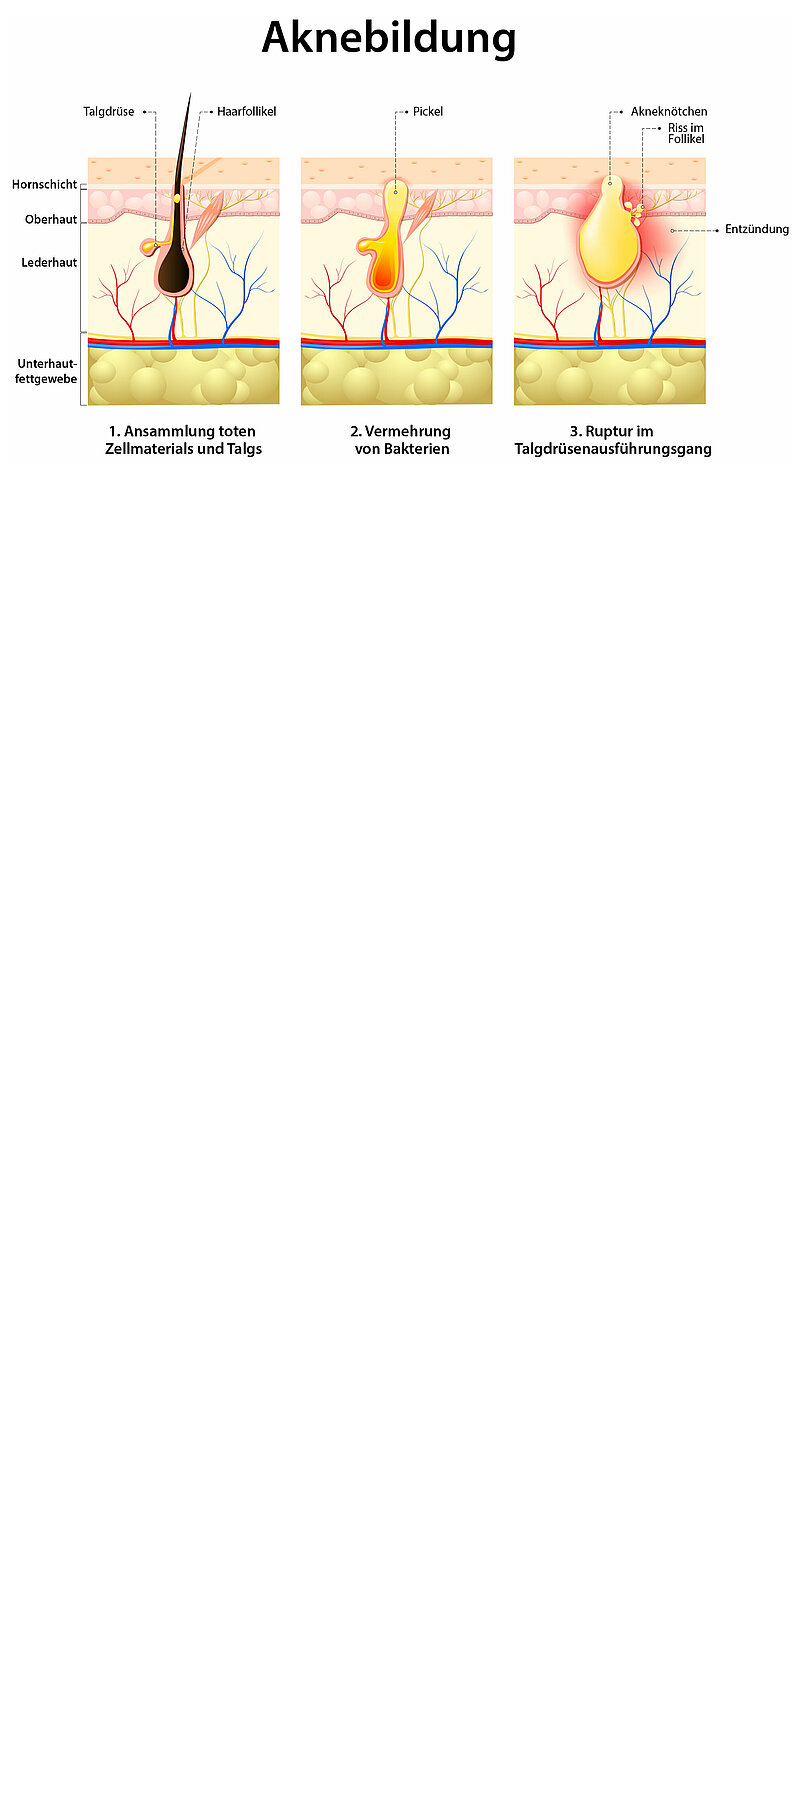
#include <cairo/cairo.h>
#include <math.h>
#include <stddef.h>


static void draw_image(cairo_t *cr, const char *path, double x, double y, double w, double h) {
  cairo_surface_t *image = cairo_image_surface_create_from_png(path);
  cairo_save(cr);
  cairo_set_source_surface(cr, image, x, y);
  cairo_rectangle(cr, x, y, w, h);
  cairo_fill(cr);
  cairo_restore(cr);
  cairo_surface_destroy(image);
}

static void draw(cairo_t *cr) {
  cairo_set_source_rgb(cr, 1, 1, 1);
  cairo_paint(cr);
  draw_image(cr, "images/1.png", 8, 16, 784, 448);
}

int main(void) {
  cairo_surface_t *surface = cairo_image_surface_create(CAIRO_FORMAT_RGB24, 805, 1793);
  cairo_t *cr = cairo_create(surface);
  cairo_font_options_t *options = cairo_font_options_create();
  cairo_font_options_set_hint_metrics(options, CAIRO_HINT_METRICS_OFF);
  cairo_font_options_set_hint_style(options, CAIRO_HINT_STYLE_NONE);
  cairo_set_font_options(cr, options);
  cairo_set_miter_limit(cr, 4);
  draw(cr);
  cairo_surface_write_to_png(surface, "out.png");
  cairo_font_options_destroy(options);
  cairo_destroy(cr);
  cairo_surface_destroy(surface);
  return 0;
}
